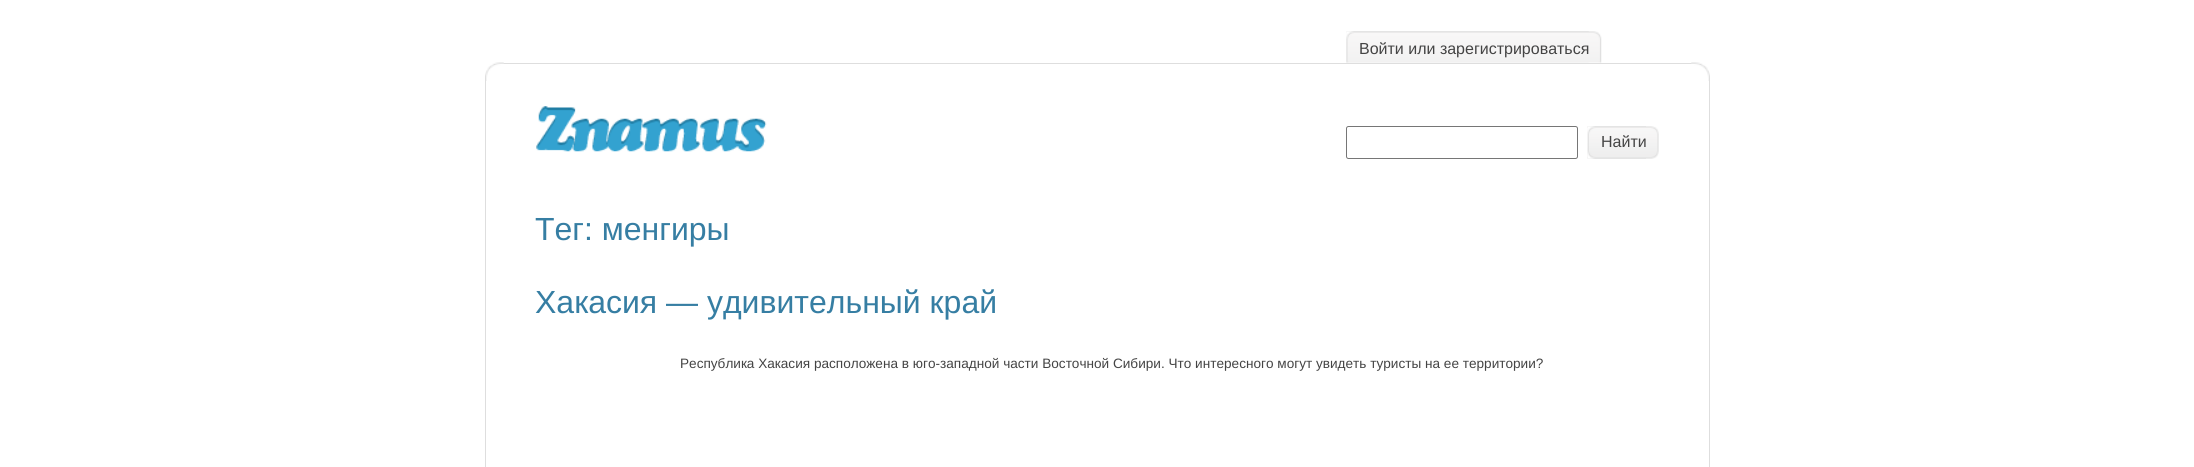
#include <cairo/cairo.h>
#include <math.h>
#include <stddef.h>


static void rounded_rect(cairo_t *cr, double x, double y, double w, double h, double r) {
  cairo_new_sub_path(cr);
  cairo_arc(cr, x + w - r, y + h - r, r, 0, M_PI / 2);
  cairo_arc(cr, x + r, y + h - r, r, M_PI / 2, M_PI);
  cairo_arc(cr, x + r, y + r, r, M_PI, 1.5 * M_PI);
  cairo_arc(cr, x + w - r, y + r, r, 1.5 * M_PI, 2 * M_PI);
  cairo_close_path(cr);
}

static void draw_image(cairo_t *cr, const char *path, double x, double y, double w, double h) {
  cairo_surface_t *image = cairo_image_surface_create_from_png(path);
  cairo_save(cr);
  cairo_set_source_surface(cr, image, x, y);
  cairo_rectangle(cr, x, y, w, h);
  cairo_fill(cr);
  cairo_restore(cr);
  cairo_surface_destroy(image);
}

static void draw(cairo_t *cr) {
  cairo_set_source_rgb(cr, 1, 1, 1);
  cairo_paint(cr);
  cairo_set_source_rgb(cr, 222 / 255.0, 222 / 255.0, 222 / 255.0);
  cairo_rectangle(cr, 503, 63, 1189, 1);
  cairo_fill(cr);
  cairo_rectangle(cr, 1709, 81, 1, 386);
  cairo_fill(cr);
  cairo_rectangle(cr, 485, 81, 1, 386);
  cairo_fill(cr);
  draw_image(cr, "images/1.png", 1346, 31, 256, 32);
  draw_image(cr, "images/2.png", 1346, 31, 243, 32);
  draw_image(cr, "images/3.png", 536, 106, 231, 46);
  rounded_rect(cr, 1346.5, 126.5, 231, 32, 2);
  cairo_set_source_rgb(cr, 118 / 255.0, 118 / 255.0, 118 / 255.0);
  cairo_set_line_width(cr, 1);
  cairo_stroke(cr);
  draw_image(cr, "images/4.png", 1587, 126, 72, 33);
  draw_image(cr, "images/5.png", 1587, 126, 59, 33);
  draw_image(cr, "images/6.png", 485, 62, 19, 19);
  draw_image(cr, "images/7.png", 1691, 62, 19, 19);
  cairo_select_font_face(cr, "Liberation Sans", CAIRO_FONT_SLANT_NORMAL, CAIRO_FONT_WEIGHT_NORMAL);
  cairo_set_font_size(cr, 16);
  cairo_set_source_rgb(cr, 68 / 255.0, 68 / 255.0, 68 / 255.0);
  cairo_move_to(cr, 1359, 54);
  cairo_show_text(cr, "Войти или зарегистрироваться");
  cairo_move_to(cr, 1601, 147);
  cairo_show_text(cr, "Найти");
  cairo_set_font_size(cr, 32);
  cairo_set_source_rgb(cr, 54 / 255.0, 126 / 255.0, 163 / 255.0);
  cairo_move_to(cr, 535, 240);
  cairo_show_text(cr, "Тег: менгиры");
  cairo_move_to(cr, 535, 313);
  cairo_show_text(cr, "Хакасия — удивительный край");
  cairo_set_font_size(cr, 13.6);
  cairo_set_source_rgb(cr, 68 / 255.0, 68 / 255.0, 68 / 255.0);
  cairo_move_to(cr, 680, 368);
  cairo_show_text(cr, "Республика Хакасия расположена в юго-западной части Восточной Сибири. Что интересного могут увидеть туристы на ее территории?");
}

int main(void) {
  cairo_surface_t *surface = cairo_image_surface_create(CAIRO_FORMAT_RGB24, 2194, 467);
  cairo_t *cr = cairo_create(surface);
  cairo_font_options_t *options = cairo_font_options_create();
  cairo_font_options_set_hint_metrics(options, CAIRO_HINT_METRICS_OFF);
  cairo_font_options_set_hint_style(options, CAIRO_HINT_STYLE_NONE);
  cairo_set_font_options(cr, options);
  cairo_set_miter_limit(cr, 4);
  draw(cr);
  cairo_surface_write_to_png(surface, "out.png");
  cairo_font_options_destroy(options);
  cairo_destroy(cr);
  cairo_surface_destroy(surface);
  return 0;
}
